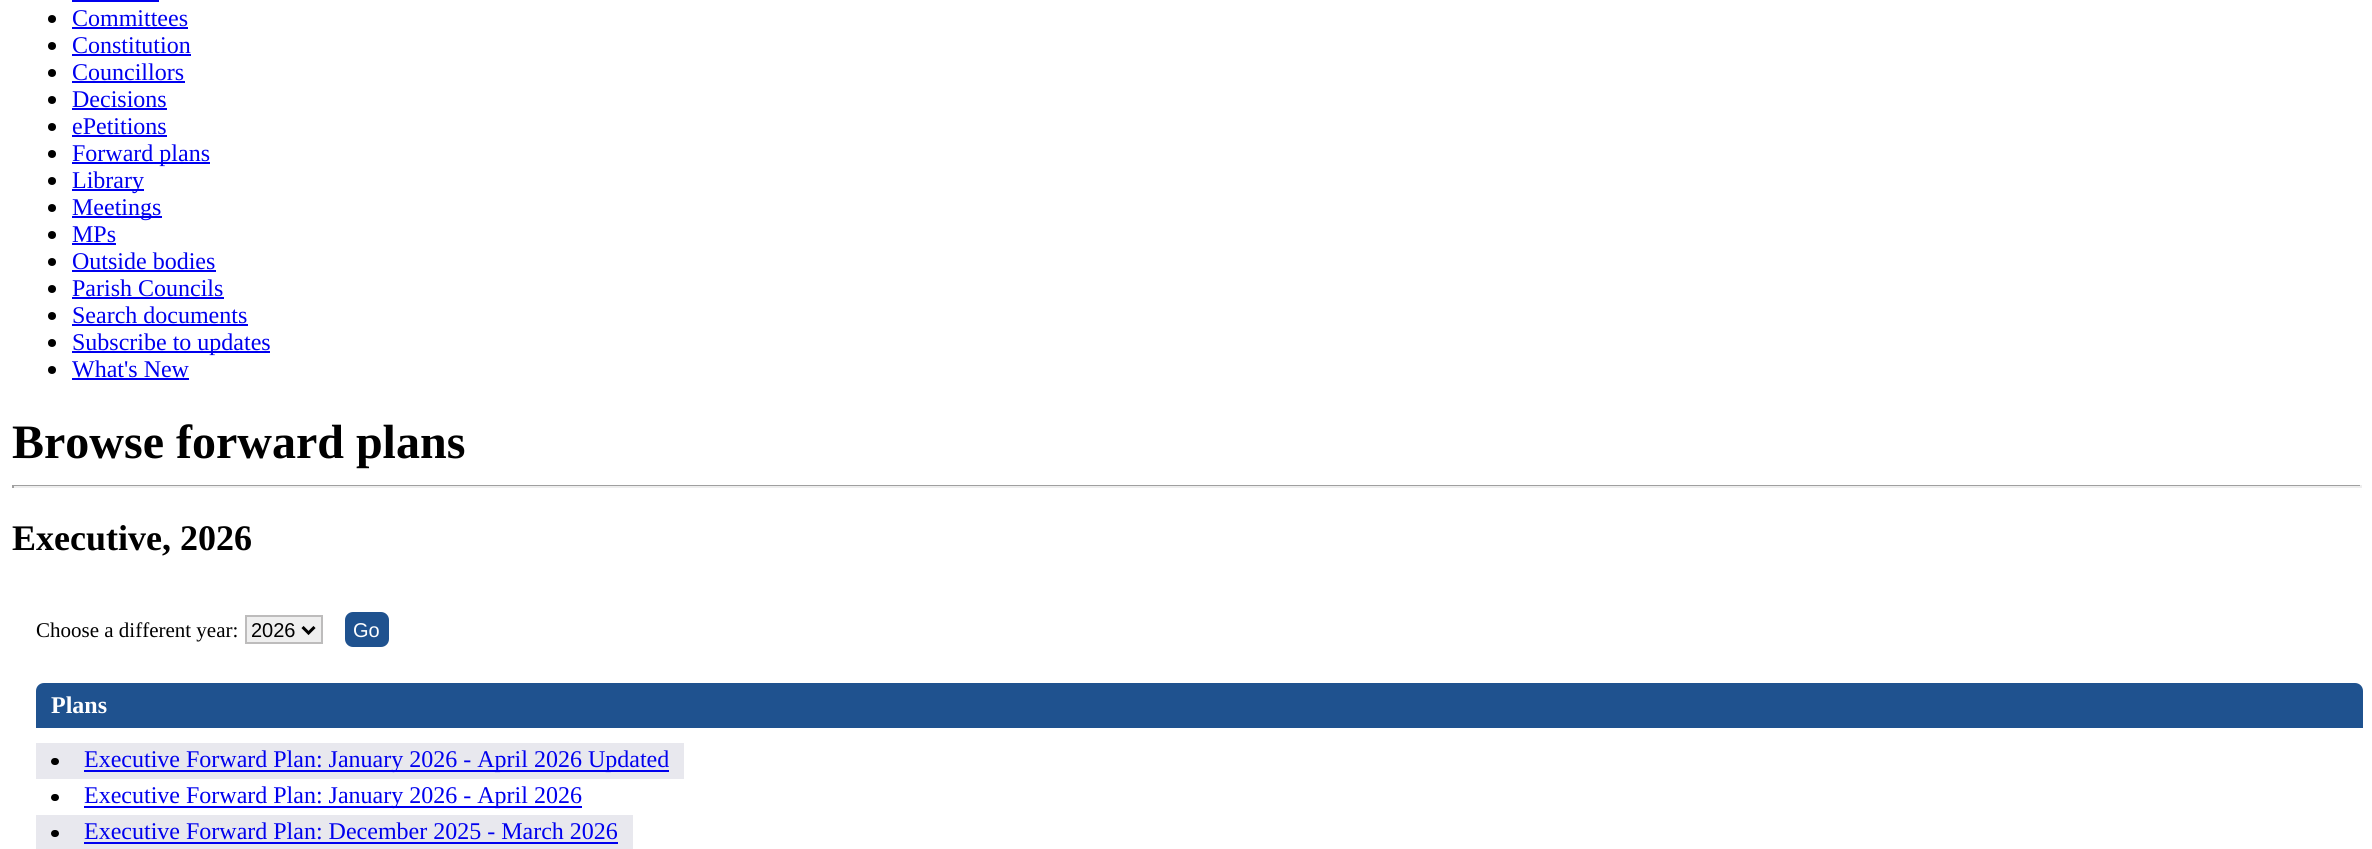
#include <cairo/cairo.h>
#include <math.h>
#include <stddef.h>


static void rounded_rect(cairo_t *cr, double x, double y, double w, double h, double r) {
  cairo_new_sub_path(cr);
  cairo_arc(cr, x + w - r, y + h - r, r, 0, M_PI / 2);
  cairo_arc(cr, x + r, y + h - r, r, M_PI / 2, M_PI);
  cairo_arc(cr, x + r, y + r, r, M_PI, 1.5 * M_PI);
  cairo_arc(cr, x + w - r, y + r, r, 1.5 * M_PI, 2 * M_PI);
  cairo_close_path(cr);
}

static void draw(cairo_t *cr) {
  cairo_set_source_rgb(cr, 1, 1, 1);
  cairo_paint(cr);
  cairo_set_source_rgb(cr, 0, 0, 238 / 255.0);
  cairo_rectangle(cr, 72, 0, 87, 2);
  cairo_fill(cr);
  cairo_set_source_rgb(cr, 0, 0, 0);
  cairo_arc(cr, 52, 19, 4, 0, 2 * M_PI);
  cairo_fill(cr);
  cairo_set_source_rgb(cr, 0, 0, 238 / 255.0);
  cairo_rectangle(cr, 72, 27, 116, 2);
  cairo_fill(cr);
  cairo_set_source_rgb(cr, 0, 0, 0);
  cairo_arc(cr, 52, 46, 4, 0, 2 * M_PI);
  cairo_fill(cr);
  cairo_set_source_rgb(cr, 0, 0, 238 / 255.0);
  cairo_rectangle(cr, 72, 54, 119, 2);
  cairo_fill(cr);
  cairo_set_source_rgb(cr, 0, 0, 0);
  cairo_arc(cr, 52, 73, 4, 0, 2 * M_PI);
  cairo_fill(cr);
  cairo_set_source_rgb(cr, 0, 0, 238 / 255.0);
  cairo_rectangle(cr, 72, 81, 113, 2);
  cairo_fill(cr);
  cairo_set_source_rgb(cr, 0, 0, 0);
  cairo_arc(cr, 52, 100, 4, 0, 2 * M_PI);
  cairo_fill(cr);
  cairo_set_source_rgb(cr, 0, 0, 238 / 255.0);
  cairo_rectangle(cr, 72, 108, 95, 2);
  cairo_fill(cr);
  cairo_set_source_rgb(cr, 0, 0, 0);
  cairo_arc(cr, 52, 127, 4, 0, 2 * M_PI);
  cairo_fill(cr);
  cairo_set_source_rgb(cr, 0, 0, 238 / 255.0);
  cairo_rectangle(cr, 72, 135, 95, 2);
  cairo_fill(cr);
  cairo_set_source_rgb(cr, 0, 0, 0);
  cairo_arc(cr, 52, 154, 4, 0, 2 * M_PI);
  cairo_fill(cr);
  cairo_set_source_rgb(cr, 0, 0, 238 / 255.0);
  cairo_rectangle(cr, 72, 162, 138, 2);
  cairo_fill(cr);
  cairo_set_source_rgb(cr, 0, 0, 0);
  cairo_arc(cr, 52, 181, 4, 0, 2 * M_PI);
  cairo_fill(cr);
  cairo_set_source_rgb(cr, 0, 0, 238 / 255.0);
  cairo_rectangle(cr, 72, 189, 72, 2);
  cairo_fill(cr);
  cairo_set_source_rgb(cr, 0, 0, 0);
  cairo_arc(cr, 52, 208, 4, 0, 2 * M_PI);
  cairo_fill(cr);
  cairo_set_source_rgb(cr, 0, 0, 238 / 255.0);
  cairo_rectangle(cr, 72, 216, 90, 2);
  cairo_fill(cr);
  cairo_set_source_rgb(cr, 0, 0, 0);
  cairo_arc(cr, 52, 235, 4, 0, 2 * M_PI);
  cairo_fill(cr);
  cairo_set_source_rgb(cr, 0, 0, 238 / 255.0);
  cairo_rectangle(cr, 72, 243, 44, 2);
  cairo_fill(cr);
  cairo_set_source_rgb(cr, 0, 0, 0);
  cairo_arc(cr, 52, 262, 4, 0, 2 * M_PI);
  cairo_fill(cr);
  cairo_set_source_rgb(cr, 0, 0, 238 / 255.0);
  cairo_rectangle(cr, 72, 270, 144, 2);
  cairo_fill(cr);
  cairo_set_source_rgb(cr, 0, 0, 0);
  cairo_arc(cr, 52, 289, 4, 0, 2 * M_PI);
  cairo_fill(cr);
  cairo_set_source_rgb(cr, 0, 0, 238 / 255.0);
  cairo_rectangle(cr, 72, 297, 152, 2);
  cairo_fill(cr);
  cairo_set_source_rgb(cr, 0, 0, 0);
  cairo_arc(cr, 52, 316, 4, 0, 2 * M_PI);
  cairo_fill(cr);
  cairo_set_source_rgb(cr, 0, 0, 238 / 255.0);
  cairo_rectangle(cr, 72, 324, 176, 2);
  cairo_fill(cr);
  cairo_set_source_rgb(cr, 0, 0, 0);
  cairo_arc(cr, 52, 343, 4, 0, 2 * M_PI);
  cairo_fill(cr);
  cairo_set_source_rgb(cr, 0, 0, 238 / 255.0);
  cairo_rectangle(cr, 72, 351, 198, 2);
  cairo_fill(cr);
  cairo_set_source_rgb(cr, 0, 0, 0);
  cairo_arc(cr, 52, 370, 4, 0, 2 * M_PI);
  cairo_fill(cr);
  cairo_set_source_rgb(cr, 0, 0, 238 / 255.0);
  cairo_rectangle(cr, 72, 378, 117, 2);
  cairo_fill(cr);
  cairo_set_source_rgb(cr, 159 / 255.0, 159 / 255.0, 159 / 255.0);
  cairo_rectangle(cr, 12, 485, 2349, 1);
  cairo_fill(cr);
  cairo_set_source_rgb(cr, 238 / 255.0, 238 / 255.0, 238 / 255.0);
  cairo_rectangle(cr, 2360, 485, 2, 3);
  cairo_fill(cr);
  cairo_rectangle(cr, 12, 486, 2349, 2);
  cairo_fill(cr);
  cairo_set_source_rgb(cr, 159 / 255.0, 159 / 255.0, 159 / 255.0);
  cairo_rectangle(cr, 12, 485, 2, 3);
  cairo_fill(cr);
  cairo_set_source_rgb(cr, 239 / 255.0, 239 / 255.0, 239 / 255.0);
  cairo_rectangle(cr, 246, 616, 76, 27);
  cairo_fill_preserve(cr);
  cairo_set_source_rgb(cr, 189 / 255.0, 188 / 255.0, 188 / 255.0);
  cairo_stroke(cr);
  cairo_new_path(cr);
  cairo_move_to(cr, 302.5, 627);
  cairo_line_to(cr, 308.5, 633);
  cairo_line_to(cr, 314.5, 627);
  cairo_set_source_rgb(cr, 0, 0, 0);
  cairo_set_line_width(cr, 3);
  cairo_stroke(cr);
  cairo_set_source_rgb(cr, 31 / 255.0, 82 / 255.0, 143 / 255.0);
  rounded_rect(cr, 346, 613, 42, 33, 7);
  cairo_fill_preserve(cr);
  cairo_set_line_width(cr, 2);
  cairo_stroke(cr);
  cairo_new_path(cr);
  cairo_move_to(cr, 44, 683);
  cairo_line_to(cr, 2355, 683);
  cairo_curve_to(cr, 2359.5, 683, 2363, 686.5, 2363, 691);
  cairo_line_to(cr, 2363, 728);
  cairo_line_to(cr, 36, 728);
  cairo_line_to(cr, 36, 691);
  cairo_curve_to(cr, 36, 686.5, 39.5, 683, 44, 683);
  cairo_close_path(cr);
  cairo_fill(cr);
  cairo_set_source_rgb(cr, 232 / 255.0, 232 / 255.0, 238 / 255.0);
  cairo_rectangle(cr, 36, 743, 648, 36);
  cairo_fill(cr);
  cairo_set_source_rgb(cr, 0, 0, 0);
  rounded_rect(cr, 51, 758, 8, 7, 3.5);
  cairo_fill(cr);
  cairo_set_source_rgb(cr, 0, 0, 238 / 255.0);
  cairo_rectangle(cr, 84, 770, 585, 2);
  cairo_fill(cr);
  cairo_set_source_rgb(cr, 0, 0, 0);
  rounded_rect(cr, 51, 794, 8, 7, 3.5);
  cairo_fill(cr);
  cairo_set_source_rgb(cr, 0, 0, 238 / 255.0);
  cairo_rectangle(cr, 84, 806, 498, 2);
  cairo_fill(cr);
  cairo_set_source_rgb(cr, 232 / 255.0, 232 / 255.0, 238 / 255.0);
  cairo_rectangle(cr, 36, 815, 597, 34);
  cairo_fill(cr);
  cairo_set_source_rgb(cr, 0, 0, 0);
  rounded_rect(cr, 51, 830, 8, 7, 3.5);
  cairo_fill(cr);
  cairo_set_source_rgb(cr, 0, 0, 238 / 255.0);
  cairo_rectangle(cr, 84, 842, 534, 2);
  cairo_fill(cr);
  cairo_select_font_face(cr, "Liberation Serif", CAIRO_FONT_SLANT_NORMAL, CAIRO_FONT_WEIGHT_NORMAL);
  cairo_set_font_size(cr, 24);
  cairo_move_to(cr, 72, 26);
  cairo_show_text(cr, "Committees");
  cairo_move_to(cr, 72, 53);
  cairo_show_text(cr, "Constitution");
  cairo_move_to(cr, 72, 80);
  cairo_show_text(cr, "Councillors");
  cairo_move_to(cr, 72, 107);
  cairo_show_text(cr, "Decisions");
  cairo_move_to(cr, 72, 134);
  cairo_show_text(cr, "ePetitions");
  cairo_move_to(cr, 72, 161);
  cairo_show_text(cr, "Forward plans");
  cairo_move_to(cr, 72, 188);
  cairo_show_text(cr, "Library");
  cairo_move_to(cr, 72, 215);
  cairo_show_text(cr, "Meetings");
  cairo_move_to(cr, 72, 242);
  cairo_show_text(cr, "MPs");
  cairo_move_to(cr, 72, 269);
  cairo_show_text(cr, "Outside bodies");
  cairo_move_to(cr, 72, 296);
  cairo_show_text(cr, "Parish Councils");
  cairo_move_to(cr, 72, 323);
  cairo_show_text(cr, "Search documents");
  cairo_move_to(cr, 72, 350);
  cairo_show_text(cr, "Subscribe to updates");
  cairo_move_to(cr, 72, 377);
  cairo_show_text(cr, "What's New");
  cairo_select_font_face(cr, "Liberation Serif", CAIRO_FONT_SLANT_NORMAL, CAIRO_FONT_WEIGHT_BOLD);
  cairo_set_font_size(cr, 48);
  cairo_set_source_rgb(cr, 0, 0, 0);
  cairo_move_to(cr, 12, 458);
  cairo_show_text(cr, "Browse forward plans");
  cairo_set_font_size(cr, 36);
  cairo_move_to(cr, 12, 550);
  cairo_show_text(cr, "Executive, 2026");
  cairo_select_font_face(cr, "Liberation Serif", CAIRO_FONT_SLANT_NORMAL, CAIRO_FONT_WEIGHT_NORMAL);
  cairo_set_font_size(cr, 21);
  cairo_move_to(cr, 36, 637);
  cairo_show_text(cr, "Choose a different year:");
  cairo_select_font_face(cr, "Liberation Sans", CAIRO_FONT_SLANT_NORMAL, CAIRO_FONT_WEIGHT_NORMAL);
  cairo_set_font_size(cr, 20);
  cairo_move_to(cr, 251, 637);
  cairo_show_text(cr, "2026");
  cairo_set_source_rgb(cr, 1, 1, 1);
  cairo_move_to(cr, 353, 637);
  cairo_show_text(cr, "Go");
  cairo_select_font_face(cr, "Liberation Serif", CAIRO_FONT_SLANT_NORMAL, CAIRO_FONT_WEIGHT_BOLD);
  cairo_set_font_size(cr, 24);
  cairo_move_to(cr, 51, 713);
  cairo_show_text(cr, "Plans");
  cairo_select_font_face(cr, "Liberation Serif", CAIRO_FONT_SLANT_NORMAL, CAIRO_FONT_WEIGHT_NORMAL);
  cairo_set_source_rgb(cr, 0, 0, 238 / 255.0);
  cairo_move_to(cr, 84, 767);
  cairo_show_text(cr, "Executive Forward Plan: January 2026 - April 2026 Updated");
  cairo_move_to(cr, 84, 803);
  cairo_show_text(cr, "Executive Forward Plan: January 2026 - April 2026");
  cairo_move_to(cr, 84, 839);
  cairo_show_text(cr, "Executive Forward Plan: December 2025 - March 2026");
}

int main(void) {
  cairo_surface_t *surface = cairo_image_surface_create(CAIRO_FORMAT_RGB24, 2372, 849);
  cairo_t *cr = cairo_create(surface);
  cairo_font_options_t *options = cairo_font_options_create();
  cairo_font_options_set_hint_metrics(options, CAIRO_HINT_METRICS_OFF);
  cairo_font_options_set_hint_style(options, CAIRO_HINT_STYLE_NONE);
  cairo_set_font_options(cr, options);
  cairo_set_miter_limit(cr, 4);
  draw(cr);
  cairo_surface_write_to_png(surface, "out.png");
  cairo_font_options_destroy(options);
  cairo_destroy(cr);
  cairo_surface_destroy(surface);
  return 0;
}
